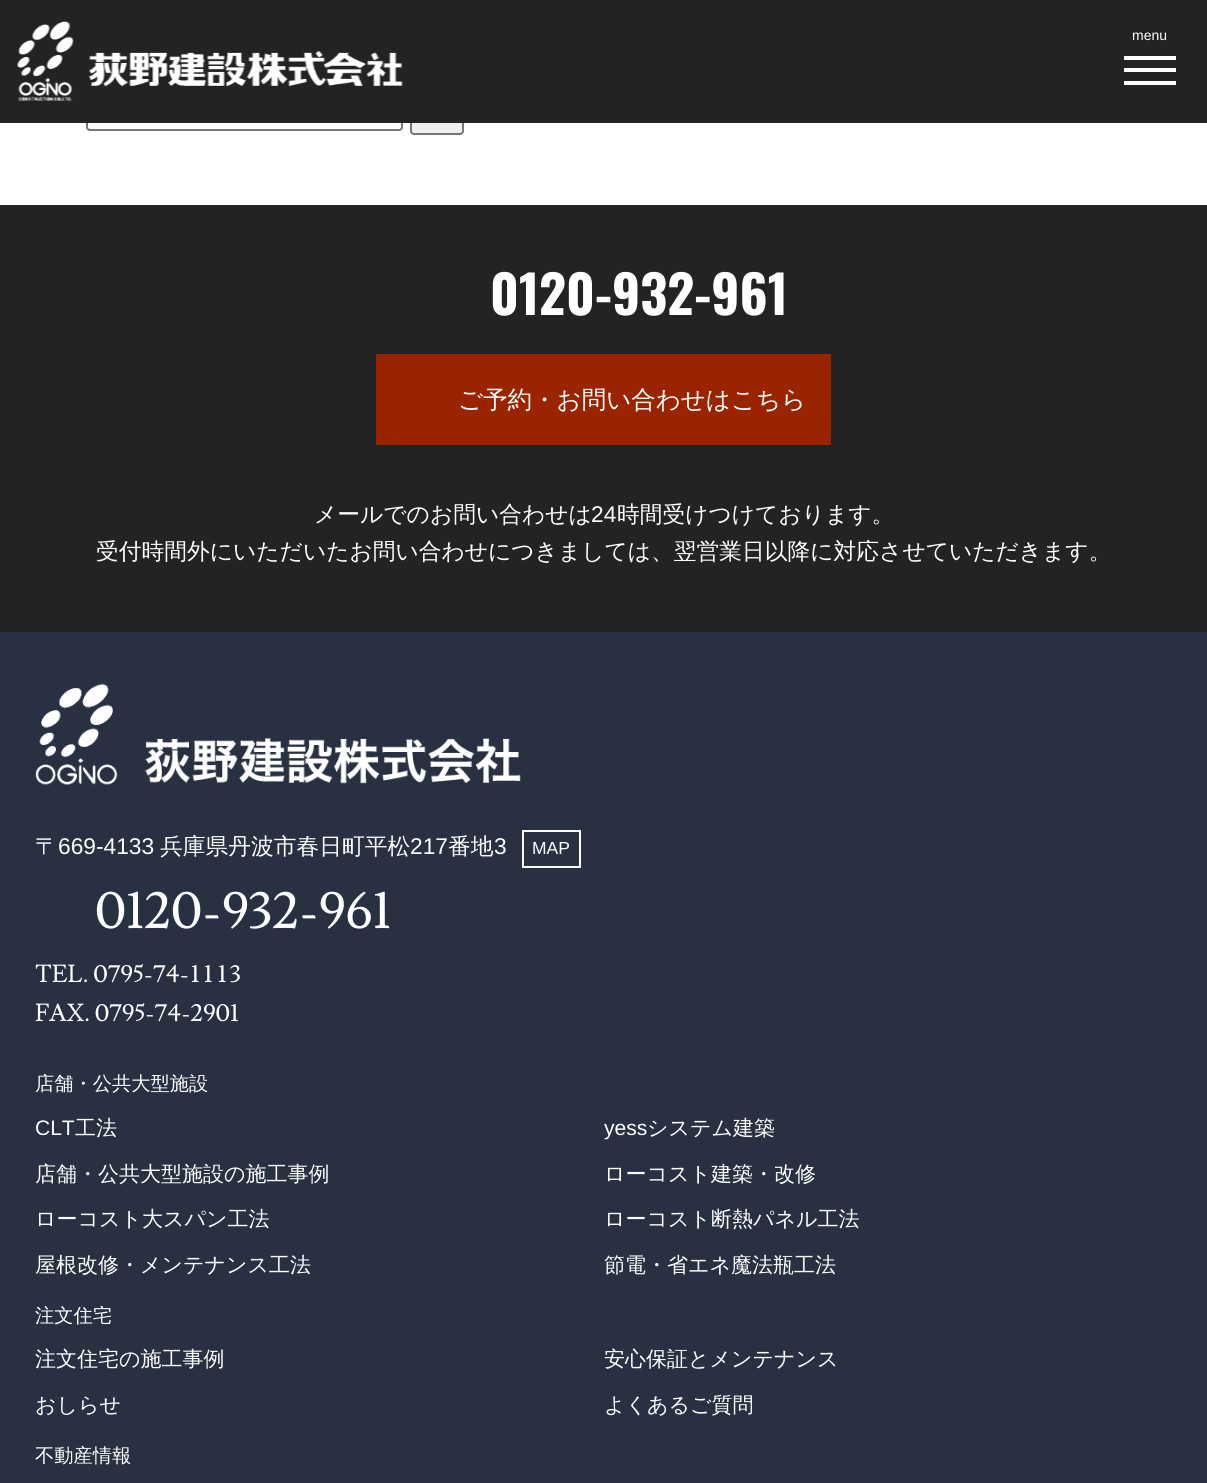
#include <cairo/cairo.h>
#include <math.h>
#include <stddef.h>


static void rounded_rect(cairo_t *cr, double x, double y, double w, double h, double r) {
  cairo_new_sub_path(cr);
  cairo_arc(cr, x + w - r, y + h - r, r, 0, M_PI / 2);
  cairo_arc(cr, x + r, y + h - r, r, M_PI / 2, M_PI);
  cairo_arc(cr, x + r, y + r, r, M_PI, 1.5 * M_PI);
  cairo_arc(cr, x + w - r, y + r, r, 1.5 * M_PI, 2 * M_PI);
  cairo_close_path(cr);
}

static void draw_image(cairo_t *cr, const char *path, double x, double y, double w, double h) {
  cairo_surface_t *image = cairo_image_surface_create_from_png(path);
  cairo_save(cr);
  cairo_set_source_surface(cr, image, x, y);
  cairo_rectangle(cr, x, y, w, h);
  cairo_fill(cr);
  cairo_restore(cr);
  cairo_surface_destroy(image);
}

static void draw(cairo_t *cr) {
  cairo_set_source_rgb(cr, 1, 1, 1);
  cairo_paint(cr);
  rounded_rect(cr, 87, 99, 315, 31, 3);
  cairo_set_source_rgb(cr, 118 / 255.0, 118 / 255.0, 118 / 255.0);
  cairo_stroke(cr);
  cairo_set_source_rgb(cr, 239 / 255.0, 239 / 255.0, 239 / 255.0);
  rounded_rect(cr, 411, 97, 52, 37, 3);
  cairo_fill_preserve(cr);
  cairo_set_source_rgb(cr, 118 / 255.0, 118 / 255.0, 118 / 255.0);
  cairo_stroke(cr);
  cairo_set_source_rgb(cr, 35 / 255.0, 35 / 255.0, 35 / 255.0);
  cairo_rectangle(cr, 0, 0, 1207, 123);
  cairo_fill(cr);
  draw_image(cr, "images/1.png", 17, 21, 386, 80);
  cairo_set_source_rgb(cr, 1, 1, 1);
  cairo_rectangle(cr, 1124, 56, 52, 4);
  cairo_fill(cr);
  cairo_rectangle(cr, 1124, 68, 52, 4);
  cairo_fill(cr);
  cairo_rectangle(cr, 1124, 81, 52, 4);
  cairo_fill(cr);
  cairo_set_source_rgb(cr, 35 / 255.0, 35 / 255.0, 35 / 255.0);
  cairo_rectangle(cr, 0, 205, 1207, 427);
  cairo_fill(cr);
  cairo_set_source_rgb(cr, 155 / 255.0, 36 / 255.0, 0);
  cairo_rectangle(cr, 376, 354, 455, 91);
  cairo_fill(cr);
  cairo_set_source_rgb(cr, 40 / 255.0, 48 / 255.0, 65 / 255.0);
  cairo_rectangle(cr, 0, 632, 1207, 851);
  cairo_fill(cr);
  draw_image(cr, "images/2.png", 35, 683, 486, 102);
  cairo_rectangle(cr, 523, 831, 57, 36);
  cairo_set_source_rgb(cr, 1, 1, 1);
  cairo_stroke(cr);
  cairo_select_font_face(cr, "Liberation Sans", CAIRO_FONT_SLANT_NORMAL, CAIRO_FONT_WEIGHT_NORMAL);
  cairo_set_font_size(cr, 14);
  cairo_move_to(cr, 1132, 40);
  cairo_show_text(cr, "menu");
  cairo_select_font_face(cr, "Oswald", CAIRO_FONT_SLANT_NORMAL, CAIRO_FONT_WEIGHT_BOLD);
  cairo_set_font_size(cr, 52.5);
  cairo_move_to(cr, 490, 315);
  cairo_show_text(cr, "0120-932-961");
  cairo_select_font_face(cr, "WenQuanYi Zen Hei Medium", CAIRO_FONT_SLANT_NORMAL, CAIRO_FONT_WEIGHT_NORMAL);
  cairo_set_font_size(cr, 24.5);
  cairo_move_to(cr, 458, 408);
  cairo_show_text(cr, "ご予約・お問い合わせはこちら");
  cairo_set_font_size(cr, 22.75);
  cairo_move_to(cr, 314, 522);
  cairo_show_text(cr, "メールでのお問い合わせは");
  cairo_select_font_face(cr, "Liberation Sans", CAIRO_FONT_SLANT_NORMAL, CAIRO_FONT_WEIGHT_NORMAL);
  cairo_move_to(cr, 591, 522);
  cairo_show_text(cr, "24");
  cairo_select_font_face(cr, "WenQuanYi Zen Hei Medium", CAIRO_FONT_SLANT_NORMAL, CAIRO_FONT_WEIGHT_NORMAL);
  cairo_move_to(cr, 617, 522);
  cairo_show_text(cr, "時間受けつけております。");
  cairo_move_to(cr, 96, 559);
  cairo_show_text(cr, "受付時間外にいただいたお問い合わせにつきましては、翌営業日以降に対応させていただきます。");
  cairo_move_to(cr, 35, 854);
  cairo_show_text(cr, "〒");
  cairo_select_font_face(cr, "Liberation Sans", CAIRO_FONT_SLANT_NORMAL, CAIRO_FONT_WEIGHT_NORMAL);
  cairo_move_to(cr, 58, 854);
  cairo_show_text(cr, "669-4133");
  cairo_select_font_face(cr, "WenQuanYi Zen Hei Medium", CAIRO_FONT_SLANT_NORMAL, CAIRO_FONT_WEIGHT_NORMAL);
  cairo_move_to(cr, 160, 854);
  cairo_show_text(cr, "兵庫県丹波市春日町平松");
  cairo_select_font_face(cr, "Liberation Sans", CAIRO_FONT_SLANT_NORMAL, CAIRO_FONT_WEIGHT_NORMAL);
  cairo_move_to(cr, 410, 854);
  cairo_show_text(cr, "217");
  cairo_select_font_face(cr, "WenQuanYi Zen Hei Medium", CAIRO_FONT_SLANT_NORMAL, CAIRO_FONT_WEIGHT_NORMAL);
  cairo_move_to(cr, 448, 854);
  cairo_show_text(cr, "番地");
  cairo_select_font_face(cr, "Liberation Sans", CAIRO_FONT_SLANT_NORMAL, CAIRO_FONT_WEIGHT_NORMAL);
  cairo_move_to(cr, 494, 854);
  cairo_show_text(cr, "3");
  cairo_set_font_size(cr, 17.5);
  cairo_move_to(cr, 532, 854);
  cairo_show_text(cr, "MAP");
  cairo_select_font_face(cr, "Lusitana", CAIRO_FONT_SLANT_NORMAL, CAIRO_FONT_WEIGHT_NORMAL);
  cairo_set_font_size(cr, 52.5);
  cairo_move_to(cr, 95, 928);
  cairo_show_text(cr, "0120-932-961");
  cairo_set_font_size(cr, 24.5);
  cairo_move_to(cr, 35, 982);
  cairo_show_text(cr, "TEL. 0795-74-");
  cairo_move_to(cr, 191, 982);
  cairo_show_text(cr, "1");
  cairo_move_to(cr, 204, 982);
  cairo_show_text(cr, "1");
  cairo_move_to(cr, 218, 982);
  cairo_show_text(cr, "1");
  cairo_move_to(cr, 230, 982);
  cairo_show_text(cr, "3");
  cairo_move_to(cr, 35, 1021);
  cairo_show_text(cr, "FAX. 0795-74-2901");
  cairo_select_font_face(cr, "WenQuanYi Zen Hei Medium", CAIRO_FONT_SLANT_NORMAL, CAIRO_FONT_WEIGHT_NORMAL);
  cairo_set_font_size(cr, 19.25);
  cairo_move_to(cr, 35, 1090);
  cairo_show_text(cr, "店舗・公共大型施設");
  cairo_select_font_face(cr, "Liberation Sans", CAIRO_FONT_SLANT_NORMAL, CAIRO_FONT_WEIGHT_NORMAL);
  cairo_set_font_size(cr, 21);
  cairo_move_to(cr, 35, 1135);
  cairo_show_text(cr, "CLT");
  cairo_select_font_face(cr, "WenQuanYi Zen Hei Medium", CAIRO_FONT_SLANT_NORMAL, CAIRO_FONT_WEIGHT_NORMAL);
  cairo_move_to(cr, 75, 1135);
  cairo_show_text(cr, "工法");
  cairo_select_font_face(cr, "Liberation Sans", CAIRO_FONT_SLANT_NORMAL, CAIRO_FONT_WEIGHT_NORMAL);
  cairo_move_to(cr, 604, 1135);
  cairo_show_text(cr, "yess");
  cairo_select_font_face(cr, "WenQuanYi Zen Hei Medium", CAIRO_FONT_SLANT_NORMAL, CAIRO_FONT_WEIGHT_NORMAL);
  cairo_move_to(cr, 647, 1135);
  cairo_show_text(cr, "システム建築");
  cairo_move_to(cr, 35, 1181);
  cairo_show_text(cr, "店舗・公共大型施設の施工事例");
  cairo_move_to(cr, 604, 1181);
  cairo_show_text(cr, "ローコスト建築・改修");
  cairo_move_to(cr, 35, 1226);
  cairo_show_text(cr, "ローコスト大スパン工法");
  cairo_move_to(cr, 604, 1226);
  cairo_show_text(cr, "ローコスト断熱パネル工法");
  cairo_move_to(cr, 35, 1272);
  cairo_show_text(cr, "屋根改修・メンテナンス工法");
  cairo_move_to(cr, 604, 1272);
  cairo_show_text(cr, "節電・省エネ魔法瓶工法");
  cairo_set_font_size(cr, 19.25);
  cairo_move_to(cr, 35, 1322);
  cairo_show_text(cr, "注文住宅");
  cairo_set_font_size(cr, 21);
  cairo_move_to(cr, 35, 1366);
  cairo_show_text(cr, "注文住宅の施工事例");
  cairo_move_to(cr, 604, 1366);
  cairo_show_text(cr, "安心保証とメンテナンス");
  cairo_move_to(cr, 35, 1412);
  cairo_show_text(cr, "おしらせ");
  cairo_move_to(cr, 604, 1412);
  cairo_show_text(cr, "よくあるご質問");
  cairo_set_font_size(cr, 19.25);
  cairo_move_to(cr, 35, 1462);
  cairo_show_text(cr, "不動産情報");
}

int main(void) {
  cairo_surface_t *surface = cairo_image_surface_create(CAIRO_FORMAT_RGB24, 1207, 1483);
  cairo_t *cr = cairo_create(surface);
  cairo_font_options_t *options = cairo_font_options_create();
  cairo_font_options_set_hint_metrics(options, CAIRO_HINT_METRICS_OFF);
  cairo_font_options_set_hint_style(options, CAIRO_HINT_STYLE_NONE);
  cairo_set_font_options(cr, options);
  cairo_set_miter_limit(cr, 4);
  draw(cr);
  cairo_surface_write_to_png(surface, "out.png");
  cairo_font_options_destroy(options);
  cairo_destroy(cr);
  cairo_surface_destroy(surface);
  return 0;
}
